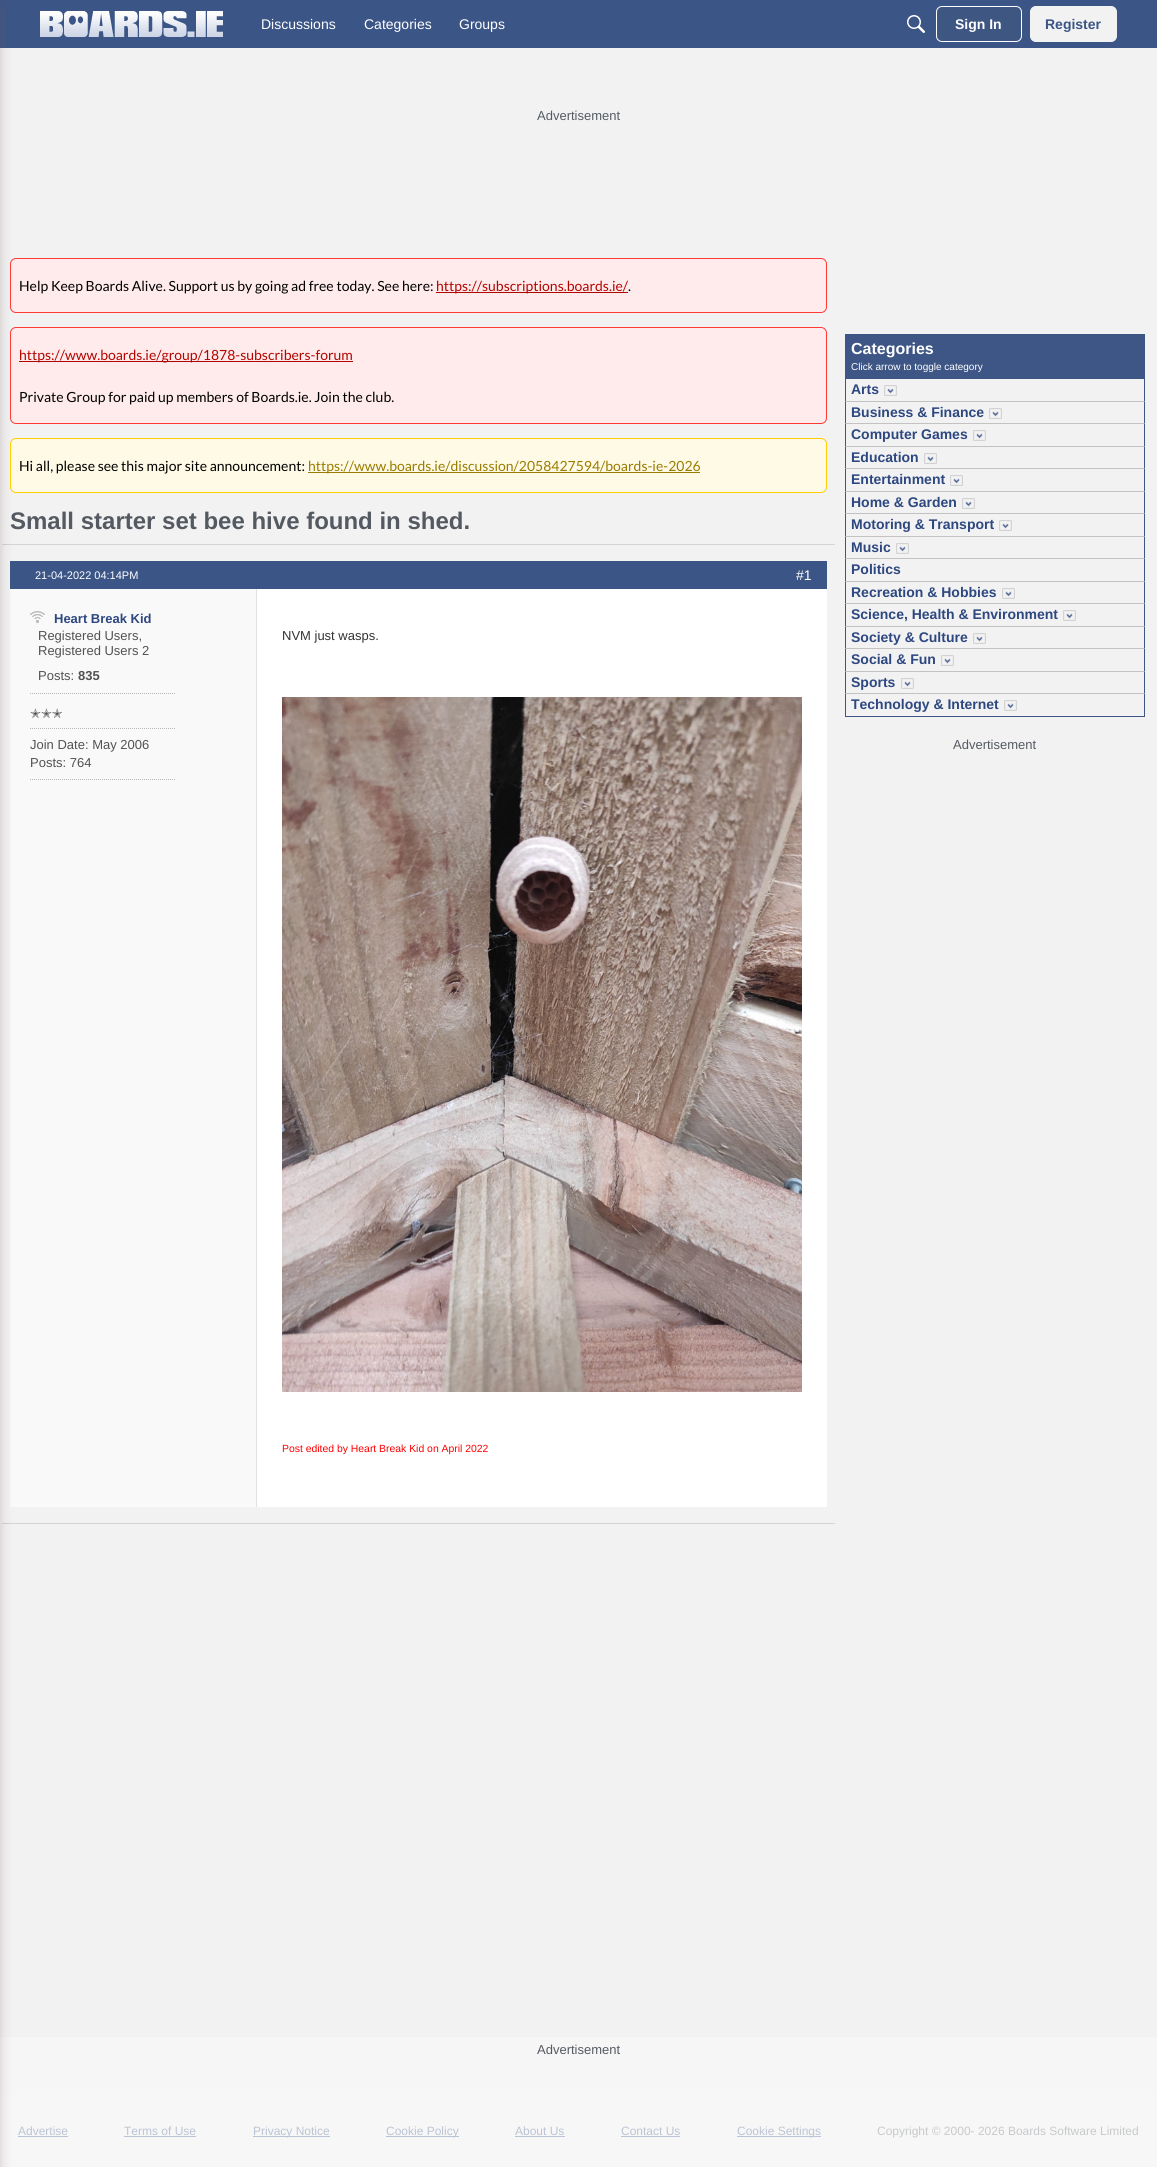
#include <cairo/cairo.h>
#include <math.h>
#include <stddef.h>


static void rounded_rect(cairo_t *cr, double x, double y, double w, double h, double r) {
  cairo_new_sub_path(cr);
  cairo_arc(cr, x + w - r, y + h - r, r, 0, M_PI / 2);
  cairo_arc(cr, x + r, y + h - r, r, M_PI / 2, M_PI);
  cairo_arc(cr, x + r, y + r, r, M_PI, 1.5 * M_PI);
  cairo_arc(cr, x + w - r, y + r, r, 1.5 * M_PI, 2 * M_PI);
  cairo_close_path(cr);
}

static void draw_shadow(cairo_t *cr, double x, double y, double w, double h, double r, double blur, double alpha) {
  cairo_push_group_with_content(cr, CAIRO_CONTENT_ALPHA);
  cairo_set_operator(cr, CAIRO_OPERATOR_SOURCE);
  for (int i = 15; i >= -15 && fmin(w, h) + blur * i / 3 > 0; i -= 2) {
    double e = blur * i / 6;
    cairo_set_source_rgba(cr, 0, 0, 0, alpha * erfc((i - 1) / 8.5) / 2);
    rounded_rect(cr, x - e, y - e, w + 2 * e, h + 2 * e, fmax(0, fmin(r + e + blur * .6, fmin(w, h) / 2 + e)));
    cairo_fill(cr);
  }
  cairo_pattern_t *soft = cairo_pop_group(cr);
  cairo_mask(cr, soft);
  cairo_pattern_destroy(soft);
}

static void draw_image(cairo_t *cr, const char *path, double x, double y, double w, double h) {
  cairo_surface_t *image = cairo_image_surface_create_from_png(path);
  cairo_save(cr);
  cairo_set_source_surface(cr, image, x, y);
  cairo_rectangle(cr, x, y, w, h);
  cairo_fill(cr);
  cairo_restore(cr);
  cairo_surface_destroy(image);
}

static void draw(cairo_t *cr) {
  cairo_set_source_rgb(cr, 242 / 255.0, 242 / 255.0, 242 / 255.0);
  cairo_paint(cr);
  cairo_set_source_rgb(cr, 246 / 255.0, 246 / 255.0, 246 / 255.0);
  cairo_rectangle(cr, 0, 2037, 1157, 58);
  cairo_fill(cr);
  cairo_set_source_rgb(cr, 59 / 255.0, 85 / 255.0, 134 / 255.0);
  cairo_rectangle(cr, 0, 0, 1157, 48);
  cairo_fill(cr);
  cairo_set_source_rgb(cr, 1, 235 / 255.0, 235 / 255.0);
  rounded_rect(cr, 10.5, 258.5, 816, 54, 5.5);
  cairo_fill_preserve(cr);
  cairo_set_source_rgb(cr, 1, 57 / 255.0, 51 / 255.0);
  cairo_set_line_width(cr, 1);
  cairo_stroke(cr);
  cairo_set_source_rgb(cr, 1, 235 / 255.0, 235 / 255.0);
  rounded_rect(cr, 10.5, 327.5, 816, 96, 5.5);
  cairo_fill_preserve(cr);
  cairo_set_source_rgb(cr, 1, 57 / 255.0, 51 / 255.0);
  cairo_stroke(cr);
  cairo_set_source_rgb(cr, 1, 250 / 255.0, 230 / 255.0);
  rounded_rect(cr, 10.5, 438.5, 816, 54, 5.5);
  cairo_fill_preserve(cr);
  cairo_set_source_rgb(cr, 1, 206 / 255.0, 0);
  cairo_stroke(cr);
  cairo_set_source_rgb(cr, 211 / 255.0, 212 / 255.0, 213 / 255.0);
  cairo_rectangle(cr, 2, 544, 833, 1);
  cairo_fill(cr);
  cairo_set_source_rgb(cr, 59 / 255.0, 85 / 255.0, 134 / 255.0);
  cairo_rectangle(cr, 10, 561, 817, 28);
  cairo_fill(cr);
  cairo_set_source_rgb(cr, 249 / 255.0, 249 / 255.0, 249 / 255.0);
  cairo_rectangle(cr, 10, 589, 246, 918);
  cairo_fill(cr);
  cairo_set_source_rgb(cr, 211 / 255.0, 212 / 255.0, 213 / 255.0);
  cairo_rectangle(cr, 2, 1523, 833, 1);
  cairo_fill(cr);
  cairo_set_source_rgb(cr, 247 / 255.0, 247 / 255.0, 247 / 255.0);
  cairo_rectangle(cr, 0, 2095, 1157, 72);
  cairo_fill(cr);
  cairo_set_source_rgb(cr, 187 / 255.0, 196 / 255.0, 212 / 255.0);
  cairo_rectangle(cr, 18, 2136, 50, 1);
  cairo_fill(cr);
  cairo_set_source_rgb(cr, 107 / 255.0, 82 / 255.0, 82 / 255.0);
  draw_shadow(cr, -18, 6, 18, 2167, 0, 6, 0.3);
  draw_image(cr, "images/1.png", 40, 11, 183, 26);
  draw_image(cr, "images/2.png", 907, 15, 18, 18);
  cairo_set_source_rgb(cr, 62 / 255.0, 86 / 255.0, 130 / 255.0);
  rounded_rect(cr, 936.5, 6.5, 85, 35, 5.5);
  cairo_fill_preserve(cr);
  cairo_set_source_rgb(cr, 1, 1, 1);
  cairo_stroke(cr);
  cairo_set_source_rgb(cr, 242 / 255.0, 242 / 255.0, 242 / 255.0);
  rounded_rect(cr, 1030.5, 6.5, 86, 35, 5.5);
  cairo_fill_preserve(cr);
  cairo_stroke(cr);
  cairo_set_source_rgb(cr, 179 / 255.0, 5 / 255.0, 0);
  cairo_rectangle(cr, 436, 292, 192, 1);
  cairo_fill(cr);
  cairo_rectangle(cr, 19, 361, 334, 1);
  cairo_fill(cr);
  cairo_set_source_rgb(cr, 153 / 255.0, 124 / 255.0, 0);
  cairo_rectangle(cr, 308, 472, 392, 1);
  cairo_fill(cr);
  cairo_new_path(cr);
  cairo_move_to(cr, 30, 693.5);
  cairo_line_to(cr, 176, 693.5);
  cairo_set_source_rgb(cr, 183 / 255.0, 183 / 255.0, 183 / 255.0);
  cairo_set_dash(cr, (double[]){1, 1}, 2, 0);
  cairo_stroke(cr);
  draw_image(cr, "images/3.png", 30, 611, 15, 12);
  cairo_new_path(cr);
  cairo_move_to(cr, 30, 728.5);
  cairo_line_to(cr, 176, 728.5);
  cairo_stroke(cr);
  cairo_new_path(cr);
  cairo_move_to(cr, 30, 779.5);
  cairo_line_to(cr, 176, 779.5);
  cairo_stroke(cr);
  cairo_set_source_rgb(cr, 1, 1, 1);
  cairo_rectangle(cr, 257, 589, 570, 918);
  cairo_fill(cr);
  cairo_set_source_rgb(cr, 226 / 255.0, 226 / 255.0, 226 / 255.0);
  cairo_rectangle(cr, 256, 589, 1, 918);
  cairo_fill(cr);
  draw_image(cr, "images/4.png", 282, 697, 520, 695);
  cairo_set_source_rgb(cr, 61 / 255.0, 86 / 255.0, 134 / 255.0);
  cairo_new_path(cr);
  cairo_move_to(cr, 1145, 334);
  cairo_line_to(cr, 1145, 402);
  cairo_line_to(cr, 1144, 401);
  cairo_line_to(cr, 1144, 334);
  cairo_close_path(cr);
  cairo_fill(cr);
  cairo_set_source_rgba(cr, 0, 0, 0, 0.2);
  cairo_new_path(cr);
  cairo_move_to(cr, 1145, 402);
  cairo_line_to(cr, 845, 402);
  cairo_line_to(cr, 846, 401);
  cairo_line_to(cr, 1144, 401);
  cairo_close_path(cr);
  cairo_fill(cr);
  cairo_set_source_rgb(cr, 61 / 255.0, 86 / 255.0, 134 / 255.0);
  cairo_new_path(cr);
  cairo_move_to(cr, 845, 402);
  cairo_line_to(cr, 845, 334);
  cairo_line_to(cr, 846, 334);
  cairo_line_to(cr, 846, 401);
  cairo_close_path(cr);
  cairo_fill(cr);
  cairo_rectangle(cr, 846, 334, 298, 45);
  cairo_fill(cr);
  draw_image(cr, "images/5.png", 884, 385, 13, 11);
  cairo_new_path(cr);
  cairo_move_to(cr, 1145, 402);
  cairo_line_to(cr, 1145, 424);
  cairo_line_to(cr, 1144, 423);
  cairo_line_to(cr, 1144, 402);
  cairo_close_path(cr);
  cairo_fill(cr);
  cairo_set_source_rgba(cr, 0, 0, 0, 0.2);
  cairo_new_path(cr);
  cairo_move_to(cr, 1145, 424);
  cairo_line_to(cr, 845, 424);
  cairo_line_to(cr, 846, 423);
  cairo_line_to(cr, 1144, 423);
  cairo_close_path(cr);
  cairo_fill(cr);
  cairo_set_source_rgb(cr, 61 / 255.0, 86 / 255.0, 134 / 255.0);
  cairo_new_path(cr);
  cairo_move_to(cr, 845, 424);
  cairo_line_to(cr, 845, 402);
  cairo_line_to(cr, 846, 402);
  cairo_line_to(cr, 846, 423);
  cairo_close_path(cr);
  cairo_fill(cr);
  draw_image(cr, "images/5.png", 989, 408, 13, 11);
  cairo_new_path(cr);
  cairo_move_to(cr, 1145, 424);
  cairo_line_to(cr, 1145, 447);
  cairo_line_to(cr, 1144, 446);
  cairo_line_to(cr, 1144, 424);
  cairo_close_path(cr);
  cairo_fill(cr);
  cairo_set_source_rgba(cr, 0, 0, 0, 0.2);
  cairo_new_path(cr);
  cairo_move_to(cr, 1145, 447);
  cairo_line_to(cr, 845, 447);
  cairo_line_to(cr, 846, 446);
  cairo_line_to(cr, 1144, 446);
  cairo_close_path(cr);
  cairo_fill(cr);
  cairo_set_source_rgb(cr, 61 / 255.0, 86 / 255.0, 134 / 255.0);
  cairo_new_path(cr);
  cairo_move_to(cr, 845, 447);
  cairo_line_to(cr, 845, 424);
  cairo_line_to(cr, 846, 424);
  cairo_line_to(cr, 846, 446);
  cairo_close_path(cr);
  cairo_fill(cr);
  draw_image(cr, "images/5.png", 973, 430, 13, 11);
  cairo_new_path(cr);
  cairo_move_to(cr, 1145, 447);
  cairo_line_to(cr, 1145, 469);
  cairo_line_to(cr, 1144, 468);
  cairo_line_to(cr, 1144, 447);
  cairo_close_path(cr);
  cairo_fill(cr);
  cairo_set_source_rgba(cr, 0, 0, 0, 0.2);
  cairo_new_path(cr);
  cairo_move_to(cr, 1145, 469);
  cairo_line_to(cr, 845, 469);
  cairo_line_to(cr, 846, 468);
  cairo_line_to(cr, 1144, 468);
  cairo_close_path(cr);
  cairo_fill(cr);
  cairo_set_source_rgb(cr, 61 / 255.0, 86 / 255.0, 134 / 255.0);
  cairo_new_path(cr);
  cairo_move_to(cr, 845, 469);
  cairo_line_to(cr, 845, 447);
  cairo_line_to(cr, 846, 447);
  cairo_line_to(cr, 846, 468);
  cairo_close_path(cr);
  cairo_fill(cr);
  draw_image(cr, "images/5.png", 924, 453, 13, 11);
  cairo_new_path(cr);
  cairo_move_to(cr, 1145, 469);
  cairo_line_to(cr, 1145, 492);
  cairo_line_to(cr, 1144, 491);
  cairo_line_to(cr, 1144, 469);
  cairo_close_path(cr);
  cairo_fill(cr);
  cairo_set_source_rgba(cr, 0, 0, 0, 0.2);
  cairo_new_path(cr);
  cairo_move_to(cr, 1145, 492);
  cairo_line_to(cr, 845, 492);
  cairo_line_to(cr, 846, 491);
  cairo_line_to(cr, 1144, 491);
  cairo_close_path(cr);
  cairo_fill(cr);
  cairo_set_source_rgb(cr, 61 / 255.0, 86 / 255.0, 134 / 255.0);
  cairo_new_path(cr);
  cairo_move_to(cr, 845, 492);
  cairo_line_to(cr, 845, 469);
  cairo_line_to(cr, 846, 469);
  cairo_line_to(cr, 846, 491);
  cairo_close_path(cr);
  cairo_fill(cr);
  draw_image(cr, "images/5.png", 950, 475, 13, 11);
  cairo_new_path(cr);
  cairo_move_to(cr, 1145, 492);
  cairo_line_to(cr, 1145, 514);
  cairo_line_to(cr, 1144, 513);
  cairo_line_to(cr, 1144, 492);
  cairo_close_path(cr);
  cairo_fill(cr);
  cairo_set_source_rgba(cr, 0, 0, 0, 0.2);
  cairo_new_path(cr);
  cairo_move_to(cr, 1145, 514);
  cairo_line_to(cr, 845, 514);
  cairo_line_to(cr, 846, 513);
  cairo_line_to(cr, 1144, 513);
  cairo_close_path(cr);
  cairo_fill(cr);
  cairo_set_source_rgb(cr, 61 / 255.0, 86 / 255.0, 134 / 255.0);
  cairo_new_path(cr);
  cairo_move_to(cr, 845, 514);
  cairo_line_to(cr, 845, 492);
  cairo_line_to(cr, 846, 492);
  cairo_line_to(cr, 846, 513);
  cairo_close_path(cr);
  cairo_fill(cr);
  draw_image(cr, "images/5.png", 962, 498, 13, 11);
  cairo_new_path(cr);
  cairo_move_to(cr, 1145, 514);
  cairo_line_to(cr, 1145, 537);
  cairo_line_to(cr, 1144, 536);
  cairo_line_to(cr, 1144, 514);
  cairo_close_path(cr);
  cairo_fill(cr);
  cairo_set_source_rgba(cr, 0, 0, 0, 0.2);
  cairo_new_path(cr);
  cairo_move_to(cr, 1145, 537);
  cairo_line_to(cr, 845, 537);
  cairo_line_to(cr, 846, 536);
  cairo_line_to(cr, 1144, 536);
  cairo_close_path(cr);
  cairo_fill(cr);
  cairo_set_source_rgb(cr, 61 / 255.0, 86 / 255.0, 134 / 255.0);
  cairo_new_path(cr);
  cairo_move_to(cr, 845, 537);
  cairo_line_to(cr, 845, 514);
  cairo_line_to(cr, 846, 514);
  cairo_line_to(cr, 846, 536);
  cairo_close_path(cr);
  cairo_fill(cr);
  draw_image(cr, "images/5.png", 999, 520, 13, 11);
  cairo_new_path(cr);
  cairo_move_to(cr, 1145, 537);
  cairo_line_to(cr, 1145, 559);
  cairo_line_to(cr, 1144, 558);
  cairo_line_to(cr, 1144, 537);
  cairo_close_path(cr);
  cairo_fill(cr);
  cairo_set_source_rgba(cr, 0, 0, 0, 0.2);
  cairo_new_path(cr);
  cairo_move_to(cr, 1145, 559);
  cairo_line_to(cr, 845, 559);
  cairo_line_to(cr, 846, 558);
  cairo_line_to(cr, 1144, 558);
  cairo_close_path(cr);
  cairo_fill(cr);
  cairo_set_source_rgb(cr, 61 / 255.0, 86 / 255.0, 134 / 255.0);
  cairo_new_path(cr);
  cairo_move_to(cr, 845, 559);
  cairo_line_to(cr, 845, 537);
  cairo_line_to(cr, 846, 537);
  cairo_line_to(cr, 846, 558);
  cairo_close_path(cr);
  cairo_fill(cr);
  draw_image(cr, "images/5.png", 896, 543, 13, 11);
  cairo_new_path(cr);
  cairo_move_to(cr, 1145, 559);
  cairo_line_to(cr, 1145, 582);
  cairo_line_to(cr, 1144, 581);
  cairo_line_to(cr, 1144, 559);
  cairo_close_path(cr);
  cairo_fill(cr);
  cairo_set_source_rgba(cr, 0, 0, 0, 0.2);
  cairo_new_path(cr);
  cairo_move_to(cr, 1145, 582);
  cairo_line_to(cr, 845, 582);
  cairo_line_to(cr, 846, 581);
  cairo_line_to(cr, 1144, 581);
  cairo_close_path(cr);
  cairo_fill(cr);
  cairo_set_source_rgb(cr, 61 / 255.0, 86 / 255.0, 134 / 255.0);
  cairo_new_path(cr);
  cairo_move_to(cr, 845, 582);
  cairo_line_to(cr, 845, 559);
  cairo_line_to(cr, 846, 559);
  cairo_line_to(cr, 846, 581);
  cairo_close_path(cr);
  cairo_fill(cr);
  cairo_new_path(cr);
  cairo_move_to(cr, 1145, 582);
  cairo_line_to(cr, 1145, 604);
  cairo_line_to(cr, 1144, 603);
  cairo_line_to(cr, 1144, 582);
  cairo_close_path(cr);
  cairo_fill(cr);
  cairo_set_source_rgba(cr, 0, 0, 0, 0.2);
  cairo_new_path(cr);
  cairo_move_to(cr, 1145, 604);
  cairo_line_to(cr, 845, 604);
  cairo_line_to(cr, 846, 603);
  cairo_line_to(cr, 1144, 603);
  cairo_close_path(cr);
  cairo_fill(cr);
  cairo_set_source_rgb(cr, 61 / 255.0, 86 / 255.0, 134 / 255.0);
  cairo_new_path(cr);
  cairo_move_to(cr, 845, 604);
  cairo_line_to(cr, 845, 582);
  cairo_line_to(cr, 846, 582);
  cairo_line_to(cr, 846, 603);
  cairo_close_path(cr);
  cairo_fill(cr);
  draw_image(cr, "images/5.png", 1002, 588, 13, 11);
  cairo_new_path(cr);
  cairo_move_to(cr, 1145, 604);
  cairo_line_to(cr, 1145, 627);
  cairo_line_to(cr, 1144, 626);
  cairo_line_to(cr, 1144, 604);
  cairo_close_path(cr);
  cairo_fill(cr);
  cairo_set_source_rgba(cr, 0, 0, 0, 0.2);
  cairo_new_path(cr);
  cairo_move_to(cr, 1145, 627);
  cairo_line_to(cr, 845, 627);
  cairo_line_to(cr, 846, 626);
  cairo_line_to(cr, 1144, 626);
  cairo_close_path(cr);
  cairo_fill(cr);
  cairo_set_source_rgb(cr, 61 / 255.0, 86 / 255.0, 134 / 255.0);
  cairo_new_path(cr);
  cairo_move_to(cr, 845, 627);
  cairo_line_to(cr, 845, 604);
  cairo_line_to(cr, 846, 604);
  cairo_line_to(cr, 846, 626);
  cairo_close_path(cr);
  cairo_fill(cr);
  draw_image(cr, "images/5.png", 1063, 610, 13, 11);
  cairo_new_path(cr);
  cairo_move_to(cr, 1145, 627);
  cairo_line_to(cr, 1145, 649);
  cairo_line_to(cr, 1144, 648);
  cairo_line_to(cr, 1144, 627);
  cairo_close_path(cr);
  cairo_fill(cr);
  cairo_set_source_rgba(cr, 0, 0, 0, 0.2);
  cairo_new_path(cr);
  cairo_move_to(cr, 1145, 649);
  cairo_line_to(cr, 845, 649);
  cairo_line_to(cr, 846, 648);
  cairo_line_to(cr, 1144, 648);
  cairo_close_path(cr);
  cairo_fill(cr);
  cairo_set_source_rgb(cr, 61 / 255.0, 86 / 255.0, 134 / 255.0);
  cairo_new_path(cr);
  cairo_move_to(cr, 845, 649);
  cairo_line_to(cr, 845, 627);
  cairo_line_to(cr, 846, 627);
  cairo_line_to(cr, 846, 648);
  cairo_close_path(cr);
  cairo_fill(cr);
  draw_image(cr, "images/5.png", 973, 633, 13, 11);
  cairo_new_path(cr);
  cairo_move_to(cr, 1145, 649);
  cairo_line_to(cr, 1145, 672);
  cairo_line_to(cr, 1144, 671);
  cairo_line_to(cr, 1144, 649);
  cairo_close_path(cr);
  cairo_fill(cr);
  cairo_set_source_rgba(cr, 0, 0, 0, 0.2);
  cairo_new_path(cr);
  cairo_move_to(cr, 1145, 672);
  cairo_line_to(cr, 845, 672);
  cairo_line_to(cr, 846, 671);
  cairo_line_to(cr, 1144, 671);
  cairo_close_path(cr);
  cairo_fill(cr);
  cairo_set_source_rgb(cr, 61 / 255.0, 86 / 255.0, 134 / 255.0);
  cairo_new_path(cr);
  cairo_move_to(cr, 845, 672);
  cairo_line_to(cr, 845, 649);
  cairo_line_to(cr, 846, 649);
  cairo_line_to(cr, 846, 671);
  cairo_close_path(cr);
  cairo_fill(cr);
  draw_image(cr, "images/5.png", 941, 655, 13, 11);
  cairo_new_path(cr);
  cairo_move_to(cr, 1145, 672);
  cairo_line_to(cr, 1145, 694);
  cairo_line_to(cr, 1144, 693);
  cairo_line_to(cr, 1144, 672);
  cairo_close_path(cr);
  cairo_fill(cr);
  cairo_set_source_rgba(cr, 0, 0, 0, 0.2);
  cairo_new_path(cr);
  cairo_move_to(cr, 1145, 694);
  cairo_line_to(cr, 845, 694);
  cairo_line_to(cr, 846, 693);
  cairo_line_to(cr, 1144, 693);
  cairo_close_path(cr);
  cairo_fill(cr);
  cairo_set_source_rgb(cr, 61 / 255.0, 86 / 255.0, 134 / 255.0);
  cairo_new_path(cr);
  cairo_move_to(cr, 845, 694);
  cairo_line_to(cr, 845, 672);
  cairo_line_to(cr, 846, 672);
  cairo_line_to(cr, 846, 693);
  cairo_close_path(cr);
  cairo_fill(cr);
  draw_image(cr, "images/5.png", 901, 678, 13, 11);
  cairo_rectangle(cr, 1144, 694, 1, 23);
  cairo_fill(cr);
  cairo_rectangle(cr, 845, 716, 300, 1);
  cairo_fill(cr);
  cairo_rectangle(cr, 845, 694, 1, 23);
  cairo_fill(cr);
  draw_image(cr, "images/5.png", 1004, 700, 13, 11);
  cairo_set_source_rgb(cr, 187 / 255.0, 196 / 255.0, 212 / 255.0);
  cairo_rectangle(cr, 124, 2136, 72, 1);
  cairo_fill(cr);
  cairo_rectangle(cr, 253, 2136, 77, 1);
  cairo_fill(cr);
  cairo_rectangle(cr, 386, 2136, 73, 1);
  cairo_fill(cr);
  cairo_rectangle(cr, 515, 2136, 50, 1);
  cairo_fill(cr);
  cairo_rectangle(cr, 621, 2136, 59, 1);
  cairo_fill(cr);
  cairo_rectangle(cr, 737, 2136, 84, 1);
  cairo_fill(cr);
  cairo_select_font_face(cr, "Liberation Sans", CAIRO_FONT_SLANT_NORMAL, CAIRO_FONT_WEIGHT_NORMAL);
  cairo_set_font_size(cr, 14);
  cairo_set_source_rgb(cr, 1, 1, 1);
  cairo_move_to(cr, 261, 29);
  cairo_show_text(cr, "Discussions");
  cairo_move_to(cr, 364, 29);
  cairo_show_text(cr, "Categories");
  cairo_move_to(cr, 459, 29);
  cairo_show_text(cr, "Groups");
  cairo_select_font_face(cr, "Liberation Sans", CAIRO_FONT_SLANT_NORMAL, CAIRO_FONT_WEIGHT_BOLD);
  cairo_move_to(cr, 955, 29);
  cairo_show_text(cr, "Sign In");
  cairo_set_source_rgb(cr, 59 / 255.0, 85 / 255.0, 134 / 255.0);
  cairo_move_to(cr, 1045, 29);
  cairo_show_text(cr, "Register");
  cairo_select_font_face(cr, "Liberation Sans", CAIRO_FONT_SLANT_NORMAL, CAIRO_FONT_WEIGHT_NORMAL);
  cairo_set_font_size(cr, 13);
  cairo_set_source_rgb(cr, 85 / 255.0, 90 / 255.0, 98 / 255.0);
  cairo_move_to(cr, 537, 120);
  cairo_show_text(cr, "Advertisement");
  cairo_select_font_face(cr, "Lato", CAIRO_FONT_SLANT_NORMAL, CAIRO_FONT_WEIGHT_NORMAL);
  cairo_set_font_size(cr, 14);
  cairo_set_source_rgb(cr, 0, 0, 0);
  cairo_move_to(cr, 19, 291);
  cairo_show_text(cr, "Help Keep Boards Alive. Support us by going ad free today. See here:");
  cairo_set_source_rgb(cr, 179 / 255.0, 5 / 255.0, 0);
  cairo_move_to(cr, 436, 291);
  cairo_show_text(cr, "https://subscriptions.boards.ie/");
  cairo_set_source_rgb(cr, 0, 0, 0);
  cairo_move_to(cr, 628, 291);
  cairo_show_text(cr, ".");
  cairo_set_source_rgb(cr, 179 / 255.0, 5 / 255.0, 0);
  cairo_move_to(cr, 19, 360);
  cairo_show_text(cr, "https://www.boards.ie/group/1878-subscribers-forum");
  cairo_set_source_rgb(cr, 0, 0, 0);
  cairo_move_to(cr, 19, 402);
  cairo_show_text(cr, "Private Group for paid up members of Boards.ie. Join the club.");
  cairo_move_to(cr, 19, 471);
  cairo_show_text(cr, "Hi all, please see this major site announcement:");
  cairo_set_source_rgb(cr, 153 / 255.0, 124 / 255.0, 0);
  cairo_move_to(cr, 308, 471);
  cairo_show_text(cr, "https://www.boards.ie/discussion/2058427594/boards-ie-2026");
  cairo_select_font_face(cr, "Liberation Sans", CAIRO_FONT_SLANT_NORMAL, CAIRO_FONT_WEIGHT_BOLD);
  cairo_set_font_size(cr, 24);
  cairo_set_source_rgb(cr, 85 / 255.0, 90 / 255.0, 98 / 255.0);
  cairo_move_to(cr, 10, 529);
  cairo_show_text(cr, "Small starter set bee hive found in shed.");
  cairo_select_font_face(cr, "Liberation Sans", CAIRO_FONT_SLANT_NORMAL, CAIRO_FONT_WEIGHT_NORMAL);
  cairo_set_font_size(cr, 11);
  cairo_set_source_rgb(cr, 1, 1, 1);
  cairo_move_to(cr, 35, 579);
  cairo_show_text(cr, "21-04-2022 04:14PM");
  cairo_set_font_size(cr, 14);
  cairo_move_to(cr, 796, 580);
  cairo_show_text(cr, "#1");
  cairo_select_font_face(cr, "Liberation Sans", CAIRO_FONT_SLANT_NORMAL, CAIRO_FONT_WEIGHT_BOLD);
  cairo_set_font_size(cr, 13);
  cairo_set_source_rgb(cr, 45 / 255.0, 71 / 255.0, 128 / 255.0);
  cairo_move_to(cr, 54, 623);
  cairo_show_text(cr, "Heart Break Kid");
  cairo_select_font_face(cr, "Liberation Sans", CAIRO_FONT_SLANT_NORMAL, CAIRO_FONT_WEIGHT_NORMAL);
  cairo_set_source_rgb(cr, 82 / 255.0, 82 / 255.0, 82 / 255.0);
  cairo_move_to(cr, 38, 640);
  cairo_show_text(cr, "Registered Users,");
  cairo_move_to(cr, 38, 655);
  cairo_show_text(cr, "Registered Users 2");
  cairo_move_to(cr, 38, 680);
  cairo_show_text(cr, "Posts:");
  cairo_select_font_face(cr, "Liberation Sans", CAIRO_FONT_SLANT_NORMAL, CAIRO_FONT_WEIGHT_BOLD);
  cairo_move_to(cr, 78, 680);
  cairo_show_text(cr, "835");
  cairo_select_font_face(cr, "DejaVu Sans", CAIRO_FONT_SLANT_NORMAL, CAIRO_FONT_WEIGHT_NORMAL);
  cairo_move_to(cr, 30, 718);
  cairo_show_text(cr, "✭✭✭");
  cairo_select_font_face(cr, "Liberation Sans", CAIRO_FONT_SLANT_NORMAL, CAIRO_FONT_WEIGHT_NORMAL);
  cairo_move_to(cr, 30, 749);
  cairo_show_text(cr, "Join Date: May 2006");
  cairo_move_to(cr, 30, 767);
  cairo_show_text(cr, "Posts: 764");
  cairo_set_source_rgb(cr, 51 / 255.0, 51 / 255.0, 51 / 255.0);
  cairo_move_to(cr, 282, 640);
  cairo_show_text(cr, "NVM just wasps.");
  cairo_set_font_size(cr, 10.4);
  cairo_set_source_rgb(cr, 1, 0, 0);
  cairo_move_to(cr, 282, 1452);
  cairo_show_text(cr, "Post edited by Heart Break Kid on April 2022");
  cairo_select_font_face(cr, "Liberation Sans", CAIRO_FONT_SLANT_NORMAL, CAIRO_FONT_WEIGHT_BOLD);
  cairo_set_font_size(cr, 16);
  cairo_set_source_rgb(cr, 1, 1, 1);
  cairo_move_to(cr, 851, 354);
  cairo_show_text(cr, "Categories");
  cairo_select_font_face(cr, "Liberation Sans", CAIRO_FONT_SLANT_NORMAL, CAIRO_FONT_WEIGHT_NORMAL);
  cairo_set_font_size(cr, 10);
  cairo_move_to(cr, 851, 370);
  cairo_show_text(cr, "Click arrow to toggle category");
  cairo_select_font_face(cr, "Liberation Sans", CAIRO_FONT_SLANT_NORMAL, CAIRO_FONT_WEIGHT_BOLD);
  cairo_set_font_size(cr, 14);
  cairo_set_source_rgb(cr, 45 / 255.0, 71 / 255.0, 128 / 255.0);
  cairo_move_to(cr, 851, 394);
  cairo_show_text(cr, "Arts");
  cairo_move_to(cr, 851, 417);
  cairo_show_text(cr, "Business & Finance");
  cairo_move_to(cr, 851, 439);
  cairo_show_text(cr, "Computer Games");
  cairo_move_to(cr, 851, 462);
  cairo_show_text(cr, "Education");
  cairo_move_to(cr, 851, 484);
  cairo_show_text(cr, "Entertainment");
  cairo_move_to(cr, 851, 507);
  cairo_show_text(cr, "Home & Garden");
  cairo_move_to(cr, 851, 529);
  cairo_show_text(cr, "Motoring & Transport");
  cairo_move_to(cr, 851, 552);
  cairo_show_text(cr, "Music");
  cairo_move_to(cr, 851, 574);
  cairo_show_text(cr, "Politics");
  cairo_move_to(cr, 851, 597);
  cairo_show_text(cr, "Recreation & Hobbies");
  cairo_move_to(cr, 851, 619);
  cairo_show_text(cr, "Science, Health & Environment");
  cairo_move_to(cr, 851, 642);
  cairo_show_text(cr, "Society & Culture");
  cairo_move_to(cr, 851, 664);
  cairo_show_text(cr, "Social & Fun");
  cairo_move_to(cr, 851, 687);
  cairo_show_text(cr, "Sports");
  cairo_move_to(cr, 851, 709);
  cairo_show_text(cr, "Technology & Internet");
  cairo_select_font_face(cr, "Liberation Sans", CAIRO_FONT_SLANT_NORMAL, CAIRO_FONT_WEIGHT_NORMAL);
  cairo_set_font_size(cr, 13);
  cairo_set_source_rgb(cr, 85 / 255.0, 90 / 255.0, 98 / 255.0);
  cairo_move_to(cr, 953, 749);
  cairo_show_text(cr, "Advertisement");
  cairo_move_to(cr, 537, 2054);
  cairo_show_text(cr, "Advertisement");
  cairo_set_font_size(cr, 12);
  cairo_set_source_rgb(cr, 187 / 255.0, 196 / 255.0, 212 / 255.0);
  cairo_move_to(cr, 18, 2135);
  cairo_show_text(cr, "Advertise");
  cairo_move_to(cr, 124, 2135);
  cairo_show_text(cr, "Terms of Use");
  cairo_move_to(cr, 253, 2135);
  cairo_show_text(cr, "Privacy Notice");
  cairo_move_to(cr, 386, 2135);
  cairo_show_text(cr, "Cookie Policy");
  cairo_move_to(cr, 515, 2135);
  cairo_show_text(cr, "About Us");
  cairo_move_to(cr, 621, 2135);
  cairo_show_text(cr, "Contact Us");
  cairo_move_to(cr, 737, 2135);
  cairo_show_text(cr, "Cookie Settings");
  cairo_set_source_rgb(cr, 199 / 255.0, 201 / 255.0, 203 / 255.0);
  cairo_move_to(cr, 877, 2135);
  cairo_show_text(cr, "Copyright © 2000- 2026 Boards Software Limited");
}

int main(void) {
  cairo_surface_t *surface = cairo_image_surface_create(CAIRO_FORMAT_RGB24, 1157, 2167);
  cairo_t *cr = cairo_create(surface);
  cairo_font_options_t *options = cairo_font_options_create();
  cairo_font_options_set_hint_metrics(options, CAIRO_HINT_METRICS_OFF);
  cairo_font_options_set_hint_style(options, CAIRO_HINT_STYLE_NONE);
  cairo_set_font_options(cr, options);
  cairo_set_miter_limit(cr, 4);
  draw(cr);
  cairo_surface_write_to_png(surface, "out.png");
  cairo_font_options_destroy(options);
  cairo_destroy(cr);
  cairo_surface_destroy(surface);
  return 0;
}
